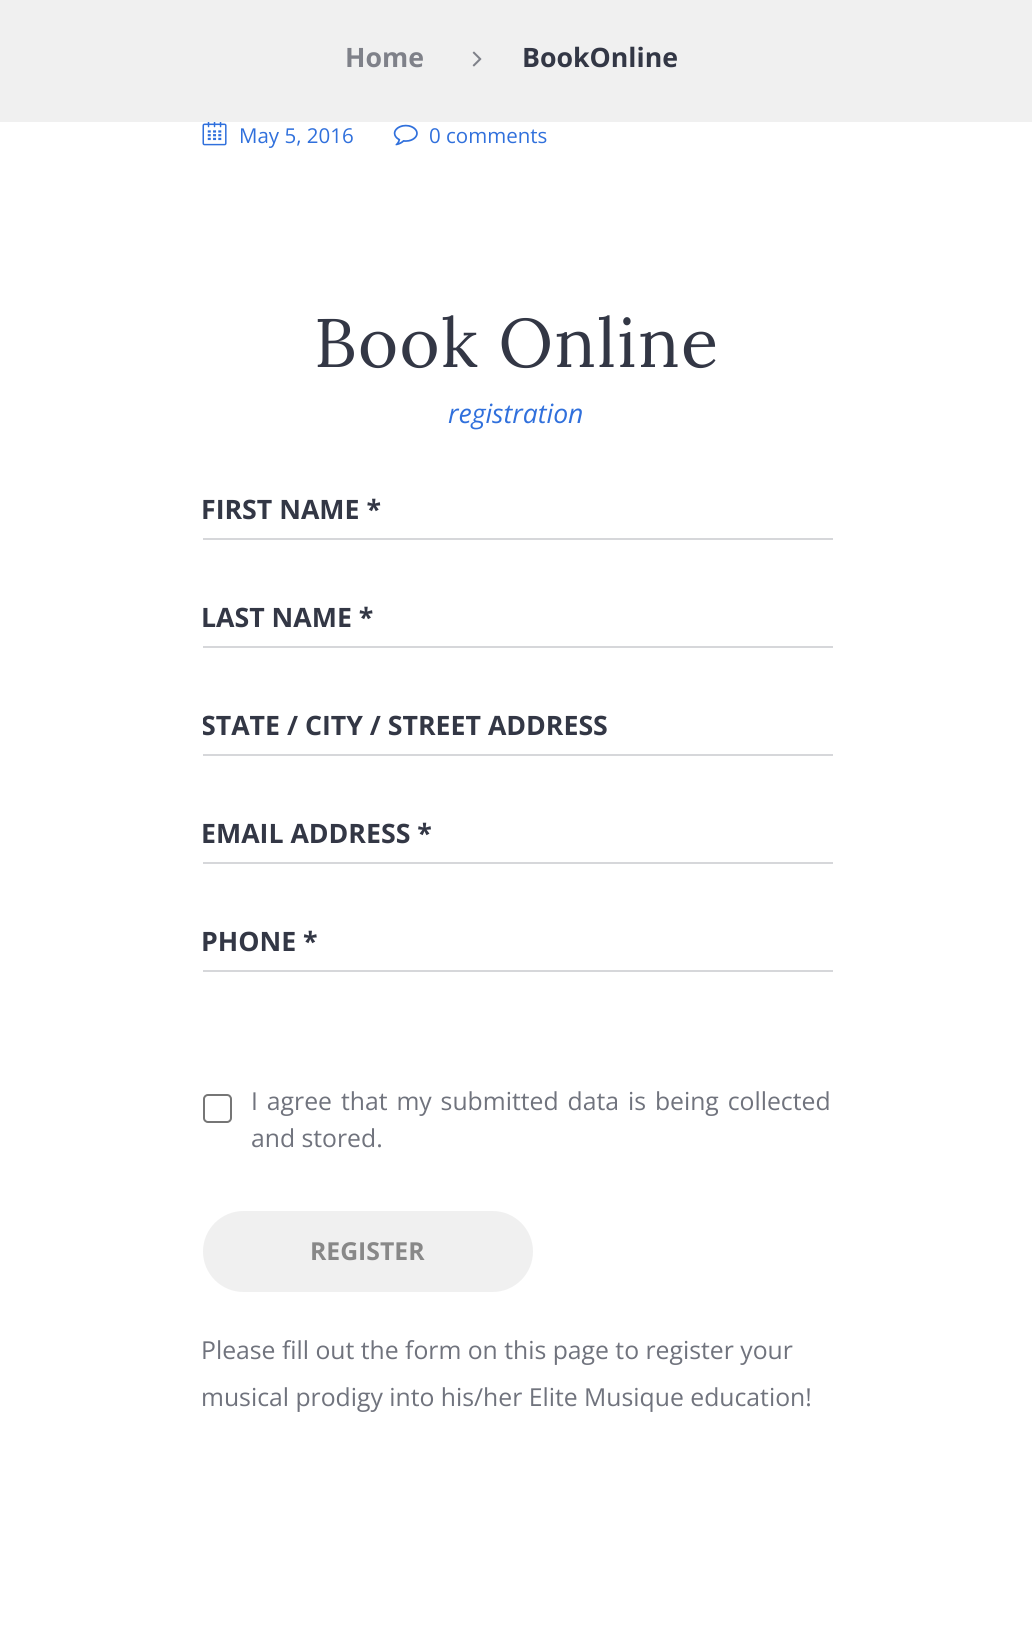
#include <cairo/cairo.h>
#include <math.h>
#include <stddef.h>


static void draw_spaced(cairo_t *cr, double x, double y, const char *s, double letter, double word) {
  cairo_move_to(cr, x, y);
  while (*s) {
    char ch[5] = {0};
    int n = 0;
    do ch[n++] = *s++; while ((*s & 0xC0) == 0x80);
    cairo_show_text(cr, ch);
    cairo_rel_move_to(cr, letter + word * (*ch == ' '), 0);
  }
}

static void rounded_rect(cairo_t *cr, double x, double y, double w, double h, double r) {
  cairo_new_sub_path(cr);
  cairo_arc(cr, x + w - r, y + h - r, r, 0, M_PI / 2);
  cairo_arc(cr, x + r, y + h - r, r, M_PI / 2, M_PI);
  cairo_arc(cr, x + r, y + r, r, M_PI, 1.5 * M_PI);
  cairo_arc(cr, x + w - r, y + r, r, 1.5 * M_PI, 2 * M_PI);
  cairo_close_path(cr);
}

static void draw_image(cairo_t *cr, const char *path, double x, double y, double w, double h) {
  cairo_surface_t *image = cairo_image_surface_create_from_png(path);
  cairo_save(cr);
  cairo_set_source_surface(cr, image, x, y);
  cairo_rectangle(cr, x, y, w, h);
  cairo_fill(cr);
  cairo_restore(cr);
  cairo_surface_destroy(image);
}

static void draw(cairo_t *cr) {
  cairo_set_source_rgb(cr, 1, 1, 1);
  cairo_paint(cr);
  cairo_set_source_rgb(cr, 240 / 255.0, 240 / 255.0, 240 / 255.0);
  cairo_rectangle(cr, 0, 0, 1032, 122);
  cairo_fill(cr);
  draw_image(cr, "images/1.png", 472, 51, 10, 16);
  draw_image(cr, "images/2.png", 202, 122, 25, 24);
  draw_image(cr, "images/3.png", 393, 124, 25, 22);
  cairo_set_source_rgb(cr, 214 / 255.0, 215 / 255.0, 218 / 255.0);
  cairo_rectangle(cr, 203, 538, 630, 2);
  cairo_fill(cr);
  cairo_rectangle(cr, 203, 646, 630, 2);
  cairo_fill(cr);
  cairo_rectangle(cr, 203, 754, 630, 2);
  cairo_fill(cr);
  cairo_rectangle(cr, 203, 862, 630, 2);
  cairo_fill(cr);
  cairo_rectangle(cr, 203, 970, 630, 2);
  cairo_fill(cr);
  rounded_rect(cr, 204, 1095, 27, 27, 4);
  cairo_set_source_rgb(cr, 118 / 255.0, 118 / 255.0, 118 / 255.0);
  cairo_stroke(cr);
  cairo_set_source_rgb(cr, 240 / 255.0, 240 / 255.0, 240 / 255.0);
  rounded_rect(cr, 203, 1211, 330, 81, 40.5);
  cairo_fill(cr);
  cairo_select_font_face(cr, "Open Sans", CAIRO_FONT_SLANT_NORMAL, CAIRO_FONT_WEIGHT_BOLD);
  cairo_set_font_size(cr, 26.7);
  cairo_set_source_rgb(cr, 127 / 255.0, 129 / 255.0, 137 / 255.0);
  cairo_move_to(cr, 345, 67);
  cairo_show_text(cr, "Home");
  cairo_set_source_rgb(cr, 51 / 255.0, 55 / 255.0, 69 / 255.0);
  cairo_move_to(cr, 522, 67);
  cairo_show_text(cr, "BookOnline");
  cairo_select_font_face(cr, "Open Sans", CAIRO_FONT_SLANT_NORMAL, CAIRO_FONT_WEIGHT_NORMAL);
  cairo_set_font_size(cr, 20.5);
  cairo_set_source_rgb(cr, 48 / 255.0, 112 / 255.0, 220 / 255.0);
  cairo_move_to(cr, 239, 143);
  cairo_show_text(cr, "May 5, 2016");
  cairo_move_to(cr, 429, 143);
  cairo_show_text(cr, "0 comments");
  cairo_select_font_face(cr, "Lora", CAIRO_FONT_SLANT_NORMAL, CAIRO_FONT_WEIGHT_NORMAL);
  cairo_set_font_size(cr, 68.5);
  cairo_set_source_rgb(cr, 51 / 255.0, 55 / 255.0, 69 / 255.0);
  draw_spaced(cr, 314, 367, "Book Online", 1.4, 0);
  cairo_select_font_face(cr, "Open Sans", CAIRO_FONT_SLANT_ITALIC, CAIRO_FONT_WEIGHT_NORMAL);
  cairo_set_font_size(cr, 26.5);
  cairo_set_source_rgb(cr, 48 / 255.0, 112 / 255.0, 220 / 255.0);
  cairo_move_to(cr, 448, 423);
  cairo_show_text(cr, "registration");
  cairo_select_font_face(cr, "Open Sans", CAIRO_FONT_SLANT_NORMAL, CAIRO_FONT_WEIGHT_BOLD);
  cairo_set_font_size(cr, 26.7);
  cairo_set_source_rgb(cr, 51 / 255.0, 55 / 255.0, 69 / 255.0);
  cairo_move_to(cr, 201, 519);
  cairo_show_text(cr, "FIRST NAME *");
  cairo_move_to(cr, 201, 627);
  cairo_show_text(cr, "LAST NAME *");
  cairo_save(cr);
  cairo_rectangle(cr, 203, 707, 630, 36);
  cairo_clip(cr);
  cairo_move_to(cr, 201, 735);
  cairo_show_text(cr, "STATE / CITY / STREET ADDRESS");
  cairo_restore(cr);
  cairo_move_to(cr, 201, 843);
  cairo_show_text(cr, "EMAIL ADDRESS *");
  cairo_move_to(cr, 201, 951);
  cairo_show_text(cr, "PHONE *");
  cairo_select_font_face(cr, "Open Sans", CAIRO_FONT_SLANT_NORMAL, CAIRO_FONT_WEIGHT_NORMAL);
  cairo_set_font_size(cr, 24.75);
  cairo_set_source_rgb(cr, 112 / 255.0, 115 / 255.0, 125 / 255.0);
  draw_spaced(cr, 251, 1110, "I agree that my submitted data is being collected", 0, 2.5);
  cairo_move_to(cr, 251, 1147);
  cairo_show_text(cr, "and stored.");
  cairo_select_font_face(cr, "Open Sans", CAIRO_FONT_SLANT_NORMAL, CAIRO_FONT_WEIGHT_BOLD);
  cairo_set_source_rgb(cr, 136 / 255.0, 136 / 255.0, 136 / 255.0);
  cairo_move_to(cr, 310, 1260);
  cairo_show_text(cr, "REGISTER");
  cairo_select_font_face(cr, "Open Sans", CAIRO_FONT_SLANT_NORMAL, CAIRO_FONT_WEIGHT_NORMAL);
  cairo_set_source_rgb(cr, 112 / 255.0, 115 / 255.0, 125 / 255.0);
  cairo_move_to(cr, 201, 1359);
  cairo_show_text(cr, "Please fill out the form on this page to register your");
  cairo_move_to(cr, 201, 1406);
  cairo_show_text(cr, "musical prodigy into his/her Elite Musique education!");
}

int main(void) {
  cairo_surface_t *surface = cairo_image_surface_create(CAIRO_FORMAT_RGB24, 1032, 1639);
  cairo_t *cr = cairo_create(surface);
  cairo_font_options_t *options = cairo_font_options_create();
  cairo_font_options_set_hint_metrics(options, CAIRO_HINT_METRICS_OFF);
  cairo_font_options_set_hint_style(options, CAIRO_HINT_STYLE_NONE);
  cairo_set_font_options(cr, options);
  cairo_set_miter_limit(cr, 4);
  draw(cr);
  cairo_surface_write_to_png(surface, "out.png");
  cairo_font_options_destroy(options);
  cairo_destroy(cr);
  cairo_surface_destroy(surface);
  return 0;
}
